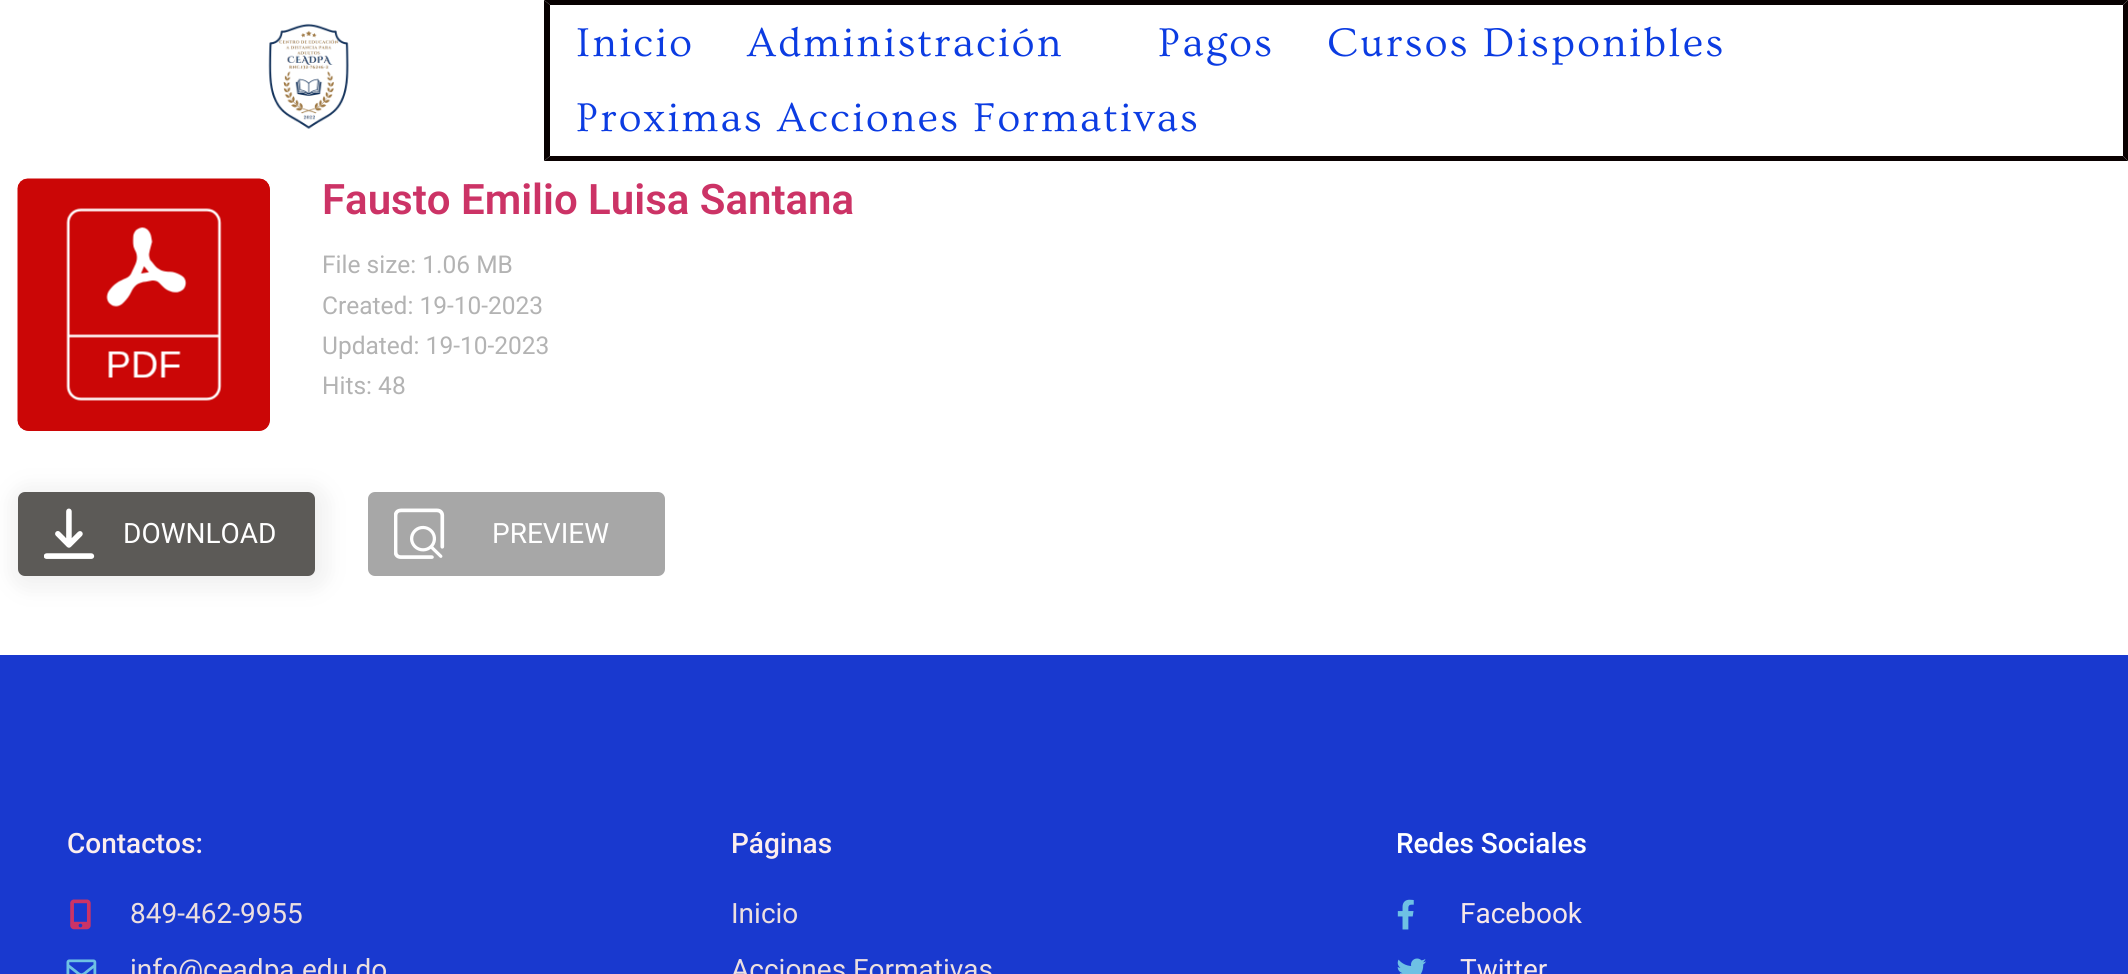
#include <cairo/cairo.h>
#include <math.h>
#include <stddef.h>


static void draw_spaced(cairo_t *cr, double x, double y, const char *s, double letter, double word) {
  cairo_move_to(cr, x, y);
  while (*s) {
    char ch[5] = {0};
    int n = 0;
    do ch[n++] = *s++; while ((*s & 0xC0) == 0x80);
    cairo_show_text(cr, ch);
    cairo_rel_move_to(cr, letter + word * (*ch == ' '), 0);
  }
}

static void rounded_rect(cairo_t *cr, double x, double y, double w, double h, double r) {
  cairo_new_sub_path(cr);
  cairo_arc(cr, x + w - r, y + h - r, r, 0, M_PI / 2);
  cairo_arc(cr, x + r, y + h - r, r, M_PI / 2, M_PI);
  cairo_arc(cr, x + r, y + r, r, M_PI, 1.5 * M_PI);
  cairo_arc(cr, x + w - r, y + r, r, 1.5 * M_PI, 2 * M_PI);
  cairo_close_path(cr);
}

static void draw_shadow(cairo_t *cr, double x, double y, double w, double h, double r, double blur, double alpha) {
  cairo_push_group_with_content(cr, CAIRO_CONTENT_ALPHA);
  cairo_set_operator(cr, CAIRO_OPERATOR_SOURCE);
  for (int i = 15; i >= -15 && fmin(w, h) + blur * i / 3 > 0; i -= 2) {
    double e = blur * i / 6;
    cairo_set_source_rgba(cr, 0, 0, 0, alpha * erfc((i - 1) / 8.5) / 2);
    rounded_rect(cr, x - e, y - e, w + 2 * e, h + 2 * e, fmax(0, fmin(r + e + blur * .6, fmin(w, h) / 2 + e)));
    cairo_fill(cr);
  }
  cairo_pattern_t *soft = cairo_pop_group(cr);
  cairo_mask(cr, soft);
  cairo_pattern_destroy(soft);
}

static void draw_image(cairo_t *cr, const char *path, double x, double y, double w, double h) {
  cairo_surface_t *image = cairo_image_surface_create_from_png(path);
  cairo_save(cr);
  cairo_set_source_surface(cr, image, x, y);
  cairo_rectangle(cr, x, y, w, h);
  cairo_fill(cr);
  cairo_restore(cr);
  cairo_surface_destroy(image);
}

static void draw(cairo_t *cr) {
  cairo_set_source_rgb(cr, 1, 1, 1);
  cairo_paint(cr);
  draw_image(cr, "images/1.png", 268, 23, 81, 106);
  cairo_set_source_rgb(cr, 7 / 255.0, 1 / 255.0, 1 / 255.0);
  cairo_new_path(cr);
  cairo_move_to(cr, 544, 0);
  cairo_line_to(cr, 2128, 0);
  cairo_line_to(cr, 2123, 5);
  cairo_line_to(cr, 550, 5);
  cairo_close_path(cr);
  cairo_fill(cr);
  cairo_set_source_rgb(cr, 10 / 255.0, 1 / 255.0, 1 / 255.0);
  cairo_new_path(cr);
  cairo_move_to(cr, 2128, 0);
  cairo_line_to(cr, 2128, 161);
  cairo_line_to(cr, 2123, 156);
  cairo_line_to(cr, 2123, 5);
  cairo_close_path(cr);
  cairo_fill(cr);
  cairo_new_path(cr);
  cairo_move_to(cr, 2128, 161);
  cairo_line_to(cr, 544, 161);
  cairo_line_to(cr, 550, 156);
  cairo_line_to(cr, 2123, 156);
  cairo_close_path(cr);
  cairo_fill(cr);
  cairo_set_source_rgb(cr, 7 / 255.0, 1 / 255.0, 1 / 255.0);
  cairo_new_path(cr);
  cairo_move_to(cr, 544, 161);
  cairo_line_to(cr, 544, 0);
  cairo_line_to(cr, 550, 5);
  cairo_line_to(cr, 550, 156);
  cairo_close_path(cr);
  cairo_fill(cr);
  cairo_set_source_rgb(cr, 203 / 255.0, 6 / 255.0, 6 / 255.0);
  rounded_rect(cr, 18, 179, 252, 252, 11);
  cairo_fill(cr);
  draw_image(cr, "images/2.png", 17, 178, 253, 253);
  cairo_set_source_rgb(cr, 240 / 255.0, 240 / 255.0, 240 / 255.0);
  draw_shadow(cr, 12, 487, 315, 101, 16, 10.5, 1);
  cairo_set_source_rgb(cr, 92 / 255.0, 90 / 255.0, 87 / 255.0);
  rounded_rect(cr, 18, 492, 297, 84, 7);
  cairo_fill(cr);
  draw_image(cr, "images/3.png", 44, 508, 51, 51);
  cairo_set_source_rgb(cr, 167 / 255.0, 167 / 255.0, 167 / 255.0);
  rounded_rect(cr, 368, 492, 297, 84, 7);
  cairo_fill(cr);
  draw_image(cr, "images/4.png", 394, 508, 51, 51);
  cairo_set_source_rgb(cr, 25 / 255.0, 57 / 255.0, 207 / 255.0);
  cairo_rectangle(cr, 0, 655, 2128, 319);
  cairo_fill(cr);
  draw_image(cr, "images/5.png", 70, 899, 21, 31);
  draw_image(cr, "images/6.png", 66, 959, 31, 15);
  draw_image(cr, "images/7.png", 1397, 899, 17, 31);
  draw_image(cr, "images/8.png", 1397, 958, 29, 16);
  cairo_select_font_face(cr, "Ovo", CAIRO_FONT_SLANT_NORMAL, CAIRO_FONT_WEIGHT_NORMAL);
  cairo_set_font_size(cr, 42);
  cairo_set_source_rgb(cr, 12 / 255.0, 60 / 255.0, 226 / 255.0);
  draw_spaced(cr, 576, 56, "Inicio", 2.25, 0);
  draw_spaced(cr, 747, 56, "Administración", 2.25, 0);
  draw_spaced(cr, 1158, 56, "Pagos", 2.25, 0);
  draw_spaced(cr, 1327, 56, "Cursos Disponibles", 2.25, 0);
  draw_spaced(cr, 576, 131, "Proximas Acciones Formativas", 2.25, 0);
  cairo_select_font_face(cr, "Roboto SemiBold", CAIRO_FONT_SLANT_NORMAL, CAIRO_FONT_WEIGHT_NORMAL);
  cairo_set_source_rgb(cr, 204 / 255.0, 51 / 255.0, 102 / 255.0);
  cairo_move_to(cr, 322, 214);
  cairo_show_text(cr, "Fausto Emilio Luisa Santana");
  cairo_select_font_face(cr, "Roboto", CAIRO_FONT_SLANT_NORMAL, CAIRO_FONT_WEIGHT_NORMAL);
  cairo_set_font_size(cr, 24.5);
  cairo_set_source_rgb(cr, 179 / 255.0, 179 / 255.0, 179 / 255.0);
  cairo_move_to(cr, 322, 273);
  cairo_show_text(cr, "File size: 1.06 MB");
  cairo_move_to(cr, 322, 314);
  cairo_show_text(cr, "Created: 19-10-2023");
  cairo_move_to(cr, 322, 354);
  cairo_show_text(cr, "Updated: 19-10-2023");
  cairo_move_to(cr, 322, 394);
  cairo_show_text(cr, "Hits: 48");
  cairo_set_font_size(cr, 28);
  cairo_set_source_rgb(cr, 1, 1, 1);
  cairo_move_to(cr, 123, 543);
  cairo_show_text(cr, "DOWNLOAD");
  cairo_move_to(cr, 492, 543);
  cairo_show_text(cr, "PREVIEW");
  cairo_select_font_face(cr, "Roboto Medium", CAIRO_FONT_SLANT_NORMAL, CAIRO_FONT_WEIGHT_NORMAL);
  cairo_set_source_rgb(cr, 252 / 255.0, 238 / 255.0, 238 / 255.0);
  cairo_move_to(cr, 67, 853);
  cairo_show_text(cr, "Contactos:");
  cairo_select_font_face(cr, "Roboto", CAIRO_FONT_SLANT_NORMAL, CAIRO_FONT_WEIGHT_NORMAL);
  cairo_set_source_rgb(cr, 236 / 255.0, 223 / 255.0, 223 / 255.0);
  cairo_move_to(cr, 130, 923);
  cairo_show_text(cr, "849-462-9955");
  cairo_move_to(cr, 130, 979);
  cairo_show_text(cr, "info@ceadpa.edu.do");
  cairo_select_font_face(cr, "Roboto Medium", CAIRO_FONT_SLANT_NORMAL, CAIRO_FONT_WEIGHT_NORMAL);
  cairo_set_source_rgb(cr, 252 / 255.0, 238 / 255.0, 238 / 255.0);
  cairo_move_to(cr, 731, 853);
  cairo_show_text(cr, "Páginas");
  cairo_select_font_face(cr, "Roboto", CAIRO_FONT_SLANT_NORMAL, CAIRO_FONT_WEIGHT_NORMAL);
  cairo_set_source_rgb(cr, 236 / 255.0, 223 / 255.0, 223 / 255.0);
  cairo_move_to(cr, 731, 923);
  cairo_show_text(cr, "Inicio");
  cairo_move_to(cr, 731, 979);
  cairo_show_text(cr, "Acciones Formativas");
  cairo_select_font_face(cr, "Roboto Medium", CAIRO_FONT_SLANT_NORMAL, CAIRO_FONT_WEIGHT_NORMAL);
  cairo_set_source_rgb(cr, 1, 1, 1);
  cairo_move_to(cr, 1396, 853);
  cairo_show_text(cr, "Redes Sociales");
  cairo_select_font_face(cr, "Roboto", CAIRO_FONT_SLANT_NORMAL, CAIRO_FONT_WEIGHT_NORMAL);
  cairo_set_source_rgb(cr, 247 / 255.0, 232 / 255.0, 232 / 255.0);
  cairo_move_to(cr, 1460, 923);
  cairo_show_text(cr, "Facebook");
  cairo_move_to(cr, 1460, 979);
  cairo_show_text(cr, "Twitter");
}

int main(void) {
  cairo_surface_t *surface = cairo_image_surface_create(CAIRO_FORMAT_RGB24, 2128, 974);
  cairo_t *cr = cairo_create(surface);
  cairo_font_options_t *options = cairo_font_options_create();
  cairo_font_options_set_hint_metrics(options, CAIRO_HINT_METRICS_OFF);
  cairo_font_options_set_hint_style(options, CAIRO_HINT_STYLE_NONE);
  cairo_set_font_options(cr, options);
  cairo_set_miter_limit(cr, 4);
  draw(cr);
  cairo_surface_write_to_png(surface, "out.png");
  cairo_font_options_destroy(options);
  cairo_destroy(cr);
  cairo_surface_destroy(surface);
  return 0;
}
